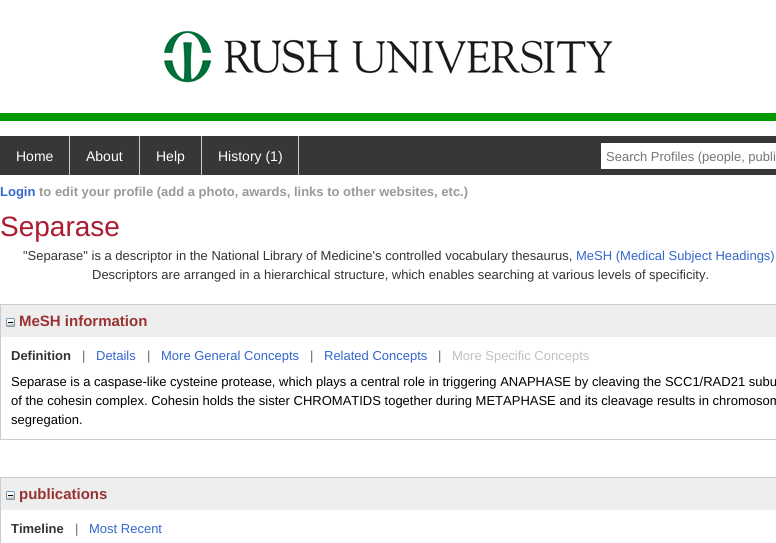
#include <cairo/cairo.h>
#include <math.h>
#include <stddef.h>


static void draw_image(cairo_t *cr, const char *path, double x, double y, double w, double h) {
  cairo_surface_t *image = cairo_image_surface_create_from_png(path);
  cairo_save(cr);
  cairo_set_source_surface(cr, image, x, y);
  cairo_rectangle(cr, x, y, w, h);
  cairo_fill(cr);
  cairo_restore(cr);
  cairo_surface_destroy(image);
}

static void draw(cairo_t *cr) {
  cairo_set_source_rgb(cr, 1, 1, 1);
  cairo_paint(cr);
  cairo_set_source_rgb(cr, 0, 153 / 255.0, 0);
  cairo_rectangle(cr, 0, 113, 776, 8);
  cairo_fill(cr);
  draw_image(cr, "images/1.png", 164, 31, 449, 52);
  cairo_set_source_rgb(cr, 56 / 255.0, 55 / 255.0, 55 / 255.0);
  cairo_rectangle(cr, 0, 136, 776, 39);
  cairo_fill(cr);
  cairo_set_source_rgb(cr, 204 / 255.0, 204 / 255.0, 204 / 255.0);
  cairo_rectangle(cr, 69, 136, 1, 39);
  cairo_fill(cr);
  cairo_rectangle(cr, 139, 136, 1, 39);
  cairo_fill(cr);
  cairo_rectangle(cr, 201, 136, 1, 39);
  cairo_fill(cr);
  cairo_rectangle(cr, 298, 136, 1, 39);
  cairo_fill(cr);
  cairo_set_source_rgb(cr, 1, 1, 1);
  cairo_rectangle(cr, 601, 143, 175, 26);
  cairo_fill(cr);
  cairo_rectangle(cr, 0.5, 304.5, 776, 135);
  cairo_set_source_rgb(cr, 204 / 255.0, 204 / 255.0, 204 / 255.0);
  cairo_set_line_width(cr, 1);
  cairo_stroke(cr);
  cairo_set_source_rgb(cr, 238 / 255.0, 238 / 255.0, 238 / 255.0);
  cairo_rectangle(cr, 1, 305, 775, 32);
  cairo_fill(cr);
  draw_image(cr, "images/2.png", 6, 318, 9, 9);
  cairo_rectangle(cr, 0.5, 477.5, 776, 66);
  cairo_set_source_rgb(cr, 204 / 255.0, 204 / 255.0, 204 / 255.0);
  cairo_stroke(cr);
  cairo_set_source_rgb(cr, 238 / 255.0, 238 / 255.0, 238 / 255.0);
  cairo_rectangle(cr, 1, 478, 775, 32);
  cairo_fill(cr);
  draw_image(cr, "images/2.png", 6, 491, 9, 9);
  cairo_select_font_face(cr, "Liberation Sans", CAIRO_FONT_SLANT_NORMAL, CAIRO_FONT_WEIGHT_NORMAL);
  cairo_set_font_size(cr, 14);
  cairo_set_source_rgb(cr, 1, 1, 1);
  cairo_move_to(cr, 16, 161);
  cairo_show_text(cr, "Home");
  cairo_move_to(cr, 86, 161);
  cairo_show_text(cr, "About");
  cairo_move_to(cr, 156, 161);
  cairo_show_text(cr, "Help");
  cairo_move_to(cr, 218, 161);
  cairo_show_text(cr, "History (1)");
  cairo_set_font_size(cr, 13);
  cairo_set_source_rgb(cr, 117 / 255.0, 117 / 255.0, 117 / 255.0);
  cairo_move_to(cr, 606, 161);
  cairo_show_text(cr, "Search Profiles (people, publi");
  cairo_select_font_face(cr, "Liberation Sans", CAIRO_FONT_SLANT_NORMAL, CAIRO_FONT_WEIGHT_BOLD);
  cairo_set_source_rgb(cr, 51 / 255.0, 102 / 255.0, 204 / 255.0);
  cairo_move_to(cr, 0, 196);
  cairo_show_text(cr, "Login");
  cairo_set_source_rgb(cr, 153 / 255.0, 153 / 255.0, 153 / 255.0);
  cairo_move_to(cr, 39, 196);
  cairo_show_text(cr, "to edit your profile (add a photo, awards, links to other websites, etc.)");
  cairo_select_font_face(cr, "Liberation Sans", CAIRO_FONT_SLANT_NORMAL, CAIRO_FONT_WEIGHT_NORMAL);
  cairo_set_font_size(cr, 28);
  cairo_set_source_rgb(cr, 172 / 255.0, 27 / 255.0, 48 / 255.0);
  cairo_move_to(cr, 0, 236);
  cairo_show_text(cr, "Separase");
  cairo_set_font_size(cr, 13);
  cairo_set_source_rgb(cr, 51 / 255.0, 51 / 255.0, 51 / 255.0);
  cairo_move_to(cr, 23, 260);
  cairo_show_text(cr, "\"Separase\" is a descriptor in the National Library of Medicine's controlled vocabulary thesaurus,");
  cairo_set_source_rgb(cr, 51 / 255.0, 102 / 255.0, 204 / 255.0);
  cairo_move_to(cr, 576, 260);
  cairo_show_text(cr, "MeSH (Medical Subject Headings)");
  cairo_set_source_rgb(cr, 51 / 255.0, 51 / 255.0, 51 / 255.0);
  cairo_move_to(cr, 92, 279);
  cairo_show_text(cr, "Descriptors are arranged in a hierarchical structure, which enables searching at various levels of specificity.");
  cairo_select_font_face(cr, "Liberation Sans", CAIRO_FONT_SLANT_NORMAL, CAIRO_FONT_WEIGHT_BOLD);
  cairo_set_font_size(cr, 15);
  cairo_set_source_rgb(cr, 153 / 255.0, 51 / 255.0, 51 / 255.0);
  cairo_move_to(cr, 19, 326);
  cairo_show_text(cr, "MeSH information");
  cairo_set_font_size(cr, 13);
  cairo_set_source_rgb(cr, 51 / 255.0, 51 / 255.0, 51 / 255.0);
  cairo_move_to(cr, 11, 360);
  cairo_show_text(cr, "Definition");
  cairo_select_font_face(cr, "Liberation Sans", CAIRO_FONT_SLANT_NORMAL, CAIRO_FONT_WEIGHT_NORMAL);
  cairo_set_source_rgb(cr, 102 / 255.0, 102 / 255.0, 102 / 255.0);
  cairo_move_to(cr, 82, 360);
  cairo_show_text(cr, "|");
  cairo_set_source_rgb(cr, 51 / 255.0, 102 / 255.0, 204 / 255.0);
  cairo_move_to(cr, 96, 360);
  cairo_show_text(cr, "Details");
  cairo_set_source_rgb(cr, 102 / 255.0, 102 / 255.0, 102 / 255.0);
  cairo_move_to(cr, 147, 360);
  cairo_show_text(cr, "|");
  cairo_set_source_rgb(cr, 51 / 255.0, 102 / 255.0, 204 / 255.0);
  cairo_move_to(cr, 161, 360);
  cairo_show_text(cr, "More General Concepts");
  cairo_set_source_rgb(cr, 102 / 255.0, 102 / 255.0, 102 / 255.0);
  cairo_move_to(cr, 310, 360);
  cairo_show_text(cr, "|");
  cairo_set_source_rgb(cr, 51 / 255.0, 102 / 255.0, 204 / 255.0);
  cairo_move_to(cr, 324, 360);
  cairo_show_text(cr, "Related Concepts");
  cairo_set_source_rgb(cr, 102 / 255.0, 102 / 255.0, 102 / 255.0);
  cairo_move_to(cr, 438, 360);
  cairo_show_text(cr, "|");
  cairo_set_source_rgb(cr, 192 / 255.0, 192 / 255.0, 192 / 255.0);
  cairo_move_to(cr, 452, 360);
  cairo_show_text(cr, "More Specific Concepts");
  cairo_set_source_rgb(cr, 0, 0, 0);
  cairo_move_to(cr, 11, 386);
  cairo_show_text(cr, "Separase is a caspase-like cysteine protease, which plays a central role in triggering ANAPHASE by cleaving the SCC1/RAD21 subu");
  cairo_move_to(cr, 11, 405);
  cairo_show_text(cr, "of the cohesin complex. Cohesin holds the sister CHROMATIDS together during METAPHASE and its cleavage results in chromosom");
  cairo_move_to(cr, 11, 424);
  cairo_show_text(cr, "segregation.");
  cairo_select_font_face(cr, "Liberation Sans", CAIRO_FONT_SLANT_NORMAL, CAIRO_FONT_WEIGHT_BOLD);
  cairo_set_font_size(cr, 15);
  cairo_set_source_rgb(cr, 153 / 255.0, 51 / 255.0, 51 / 255.0);
  cairo_move_to(cr, 19, 499);
  cairo_show_text(cr, "publications");
  cairo_set_font_size(cr, 13);
  cairo_set_source_rgb(cr, 51 / 255.0, 51 / 255.0, 51 / 255.0);
  cairo_move_to(cr, 11, 533);
  cairo_show_text(cr, "Timeline");
  cairo_select_font_face(cr, "Liberation Sans", CAIRO_FONT_SLANT_NORMAL, CAIRO_FONT_WEIGHT_NORMAL);
  cairo_set_source_rgb(cr, 102 / 255.0, 102 / 255.0, 102 / 255.0);
  cairo_move_to(cr, 75, 533);
  cairo_show_text(cr, "|");
  cairo_set_source_rgb(cr, 51 / 255.0, 102 / 255.0, 204 / 255.0);
  cairo_move_to(cr, 89, 533);
  cairo_show_text(cr, "Most Recent");
}

int main(void) {
  cairo_surface_t *surface = cairo_image_surface_create(CAIRO_FORMAT_RGB24, 776, 543);
  cairo_t *cr = cairo_create(surface);
  cairo_font_options_t *options = cairo_font_options_create();
  cairo_font_options_set_hint_metrics(options, CAIRO_HINT_METRICS_OFF);
  cairo_font_options_set_hint_style(options, CAIRO_HINT_STYLE_NONE);
  cairo_set_font_options(cr, options);
  cairo_set_miter_limit(cr, 4);
  draw(cr);
  cairo_surface_write_to_png(surface, "out.png");
  cairo_font_options_destroy(options);
  cairo_destroy(cr);
  cairo_surface_destroy(surface);
  return 0;
}
